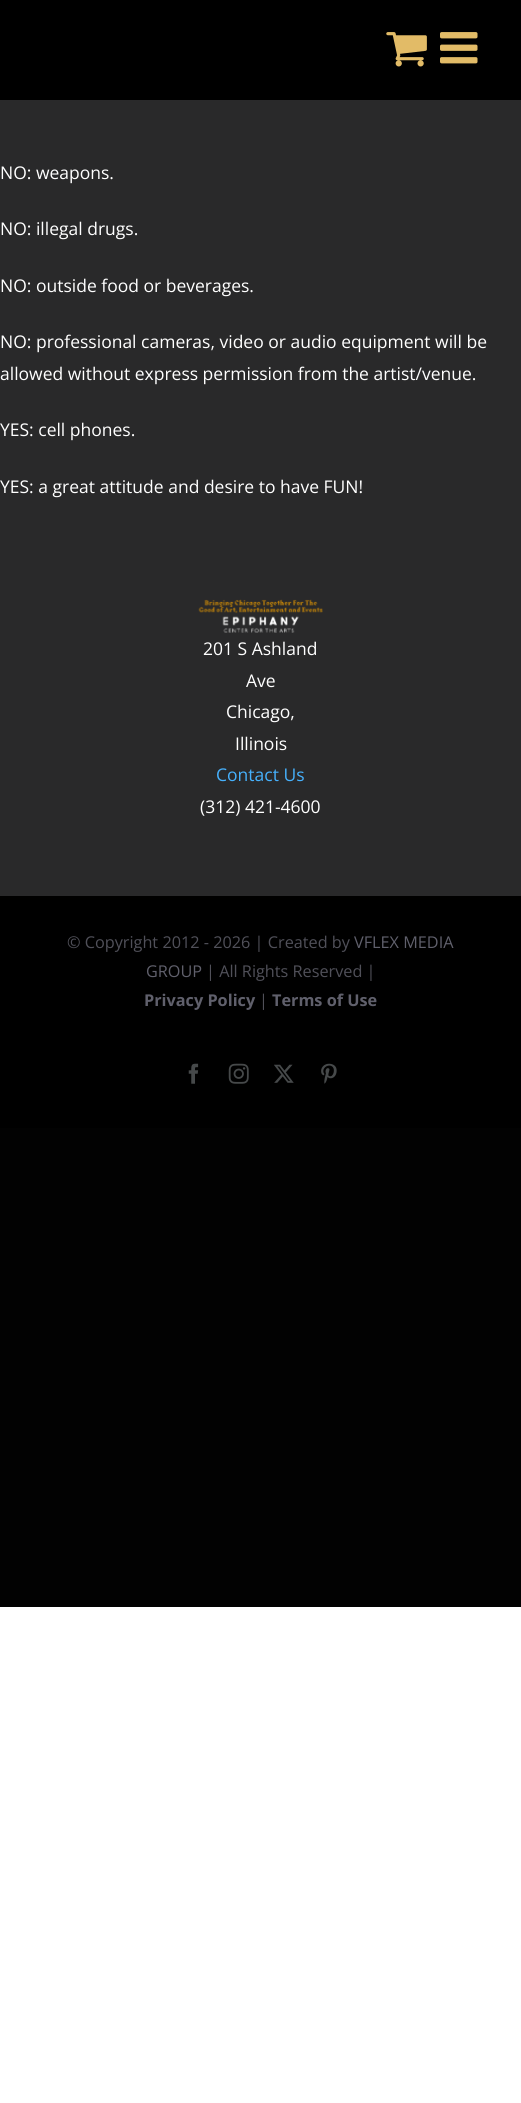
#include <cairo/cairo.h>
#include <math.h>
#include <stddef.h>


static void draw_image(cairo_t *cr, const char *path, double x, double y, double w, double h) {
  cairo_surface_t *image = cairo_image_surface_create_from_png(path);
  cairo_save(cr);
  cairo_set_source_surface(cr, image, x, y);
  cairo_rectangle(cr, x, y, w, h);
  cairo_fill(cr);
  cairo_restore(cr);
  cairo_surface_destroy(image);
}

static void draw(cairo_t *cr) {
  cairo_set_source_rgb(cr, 1, 1, 1);
  cairo_paint(cr);
  cairo_set_source_rgb(cr, 2 / 255.0, 2 / 255.0, 2 / 255.0);
  cairo_rectangle(cr, 0, 1128, 521, 479);
  cairo_fill(cr);
  cairo_set_source_rgb(cr, 41 / 255.0, 41 / 255.0, 42 / 255.0);
  cairo_rectangle(cr, 0, 100, 521, 796);
  cairo_fill(cr);
  cairo_set_source_rgb(cr, 0, 0, 0);
  cairo_rectangle(cr, 0, 0, 521, 100);
  cairo_fill(cr);
  draw_image(cr, "images/1.png", 386, 32, 41, 35);
  draw_image(cr, "images/2.png", 440, 32, 38, 32);
  draw_image(cr, "images/3.png", 198, 599, 125, 34);
  cairo_rectangle(cr, 0, 896, 521, 232);
  cairo_fill(cr);
  draw_image(cr, "images/4.png", 188, 1063, 11, 21);
  draw_image(cr, "images/5.png", 228, 1063, 21, 21);
  draw_image(cr, "images/6.png", 274, 1064, 20, 19);
  draw_image(cr, "images/7.png", 321, 1063, 16, 21);
  cairo_select_font_face(cr, "Open Sans", CAIRO_FONT_SLANT_NORMAL, CAIRO_FONT_WEIGHT_NORMAL);
  cairo_set_font_size(cr, 17.5);
  cairo_set_source_rgb(cr, 1, 1, 1);
  cairo_move_to(cr, 0, 179);
  cairo_show_text(cr, "NO: weapons.");
  cairo_move_to(cr, 0, 235);
  cairo_show_text(cr, "NO: illegal drugs.");
  cairo_move_to(cr, 0, 292);
  cairo_show_text(cr, "NO: outside food or beverages.");
  cairo_move_to(cr, 0, 348);
  cairo_show_text(cr, "NO: professional cameras, video or audio equipment will be");
  cairo_move_to(cr, 0, 380);
  cairo_show_text(cr, "allowed without express permission from the artist/venue.");
  cairo_move_to(cr, 0, 436);
  cairo_show_text(cr, "YES: cell phones.");
  cairo_move_to(cr, 0, 493);
  cairo_show_text(cr, "YES: a great attitude and desire to have FUN!");
  cairo_move_to(cr, 203, 655);
  cairo_show_text(cr, "201 S Ashland");
  cairo_move_to(cr, 246, 687);
  cairo_show_text(cr, "Ave");
  cairo_move_to(cr, 226, 718);
  cairo_show_text(cr, "Chicago,");
  cairo_move_to(cr, 235, 750);
  cairo_show_text(cr, "Illinois");
  cairo_set_source_rgb(cr, 70 / 255.0, 177 / 255.0, 253 / 255.0);
  cairo_move_to(cr, 216, 781);
  cairo_show_text(cr, "Contact Us");
  cairo_set_source_rgb(cr, 1, 1, 1);
  cairo_move_to(cr, 200, 813);
  cairo_show_text(cr, "(312) 421-4600");
  cairo_set_font_size(cr, 16.25);
  cairo_set_source_rgb(cr, 80 / 255.0, 80 / 255.0, 89 / 255.0);
  cairo_move_to(cr, 67, 948);
  cairo_show_text(cr, "© Copyright 2012 - 2026 | Created by");
  cairo_set_source_rgb(cr, 96 / 255.0, 96 / 255.0, 108 / 255.0);
  cairo_move_to(cr, 354, 948);
  cairo_show_text(cr, "VFLEX MEDIA");
  cairo_move_to(cr, 146, 977);
  cairo_show_text(cr, "GROUP");
  cairo_set_source_rgb(cr, 80 / 255.0, 80 / 255.0, 89 / 255.0);
  cairo_move_to(cr, 206, 977);
  cairo_show_text(cr, "| All Rights Reserved |");
  cairo_select_font_face(cr, "Open Sans", CAIRO_FONT_SLANT_NORMAL, CAIRO_FONT_WEIGHT_BOLD);
  cairo_set_source_rgb(cr, 96 / 255.0, 96 / 255.0, 108 / 255.0);
  cairo_move_to(cr, 144, 1006);
  cairo_show_text(cr, "Privacy Policy");
  cairo_select_font_face(cr, "Open Sans", CAIRO_FONT_SLANT_NORMAL, CAIRO_FONT_WEIGHT_NORMAL);
  cairo_set_source_rgb(cr, 80 / 255.0, 80 / 255.0, 89 / 255.0);
  cairo_move_to(cr, 259, 1006);
  cairo_show_text(cr, "|");
  cairo_select_font_face(cr, "Open Sans", CAIRO_FONT_SLANT_NORMAL, CAIRO_FONT_WEIGHT_BOLD);
  cairo_set_source_rgb(cr, 96 / 255.0, 96 / 255.0, 108 / 255.0);
  cairo_move_to(cr, 272, 1006);
  cairo_show_text(cr, "Terms of Use");
}

int main(void) {
  cairo_surface_t *surface = cairo_image_surface_create(CAIRO_FORMAT_RGB24, 521, 2103);
  cairo_t *cr = cairo_create(surface);
  cairo_font_options_t *options = cairo_font_options_create();
  cairo_font_options_set_hint_metrics(options, CAIRO_HINT_METRICS_OFF);
  cairo_font_options_set_hint_style(options, CAIRO_HINT_STYLE_NONE);
  cairo_set_font_options(cr, options);
  cairo_set_miter_limit(cr, 4);
  draw(cr);
  cairo_surface_write_to_png(surface, "out.png");
  cairo_font_options_destroy(options);
  cairo_destroy(cr);
  cairo_surface_destroy(surface);
  return 0;
}
